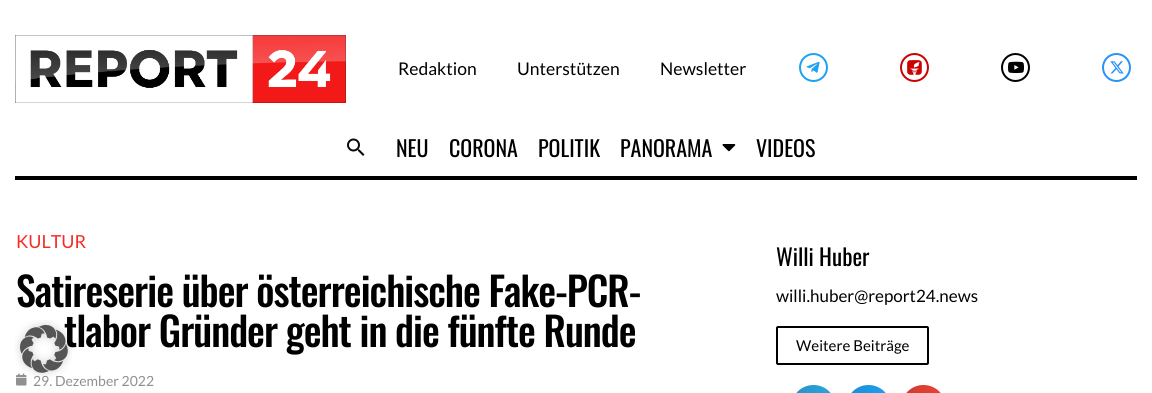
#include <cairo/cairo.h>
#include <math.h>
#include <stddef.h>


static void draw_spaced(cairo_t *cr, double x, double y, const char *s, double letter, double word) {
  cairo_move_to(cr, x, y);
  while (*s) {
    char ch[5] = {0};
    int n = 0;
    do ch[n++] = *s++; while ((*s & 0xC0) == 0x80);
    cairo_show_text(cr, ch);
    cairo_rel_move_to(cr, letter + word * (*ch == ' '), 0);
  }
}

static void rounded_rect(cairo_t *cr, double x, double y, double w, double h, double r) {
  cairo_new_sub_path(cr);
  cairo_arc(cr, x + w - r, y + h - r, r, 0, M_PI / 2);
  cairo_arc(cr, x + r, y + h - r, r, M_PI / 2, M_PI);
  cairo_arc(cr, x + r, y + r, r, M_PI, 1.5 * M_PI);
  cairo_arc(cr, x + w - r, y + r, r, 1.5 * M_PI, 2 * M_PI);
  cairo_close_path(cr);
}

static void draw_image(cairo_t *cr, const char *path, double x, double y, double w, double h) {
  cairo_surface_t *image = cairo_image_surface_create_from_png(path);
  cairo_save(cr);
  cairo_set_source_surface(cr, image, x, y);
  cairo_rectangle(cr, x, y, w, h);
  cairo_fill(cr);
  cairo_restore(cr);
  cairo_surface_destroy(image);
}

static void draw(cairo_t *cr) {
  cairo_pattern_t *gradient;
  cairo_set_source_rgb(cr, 1, 1, 1);
  cairo_paint(cr);
  draw_image(cr, "images/1.png", 15, 35, 331, 68);
  cairo_arc(cr, 813.5, 67.5, 13.5, 0, 2 * M_PI);
  cairo_set_source_rgb(cr, 29 / 255.0, 161 / 255.0, 242 / 255.0);
  cairo_stroke(cr);
  draw_image(cr, "images/2.png", 806, 61, 14, 12);
  cairo_arc(cr, 914.5, 67.5, 13.5, 0, 2 * M_PI);
  cairo_set_source_rgb(cr, 203 / 255.0, 2 / 255.0, 2 / 255.0);
  cairo_stroke(cr);
  draw_image(cr, "images/3.png", 907, 60, 15, 15);
  cairo_arc(cr, 1015.5, 67.5, 13.5, 0, 2 * M_PI);
  cairo_set_source_rgb(cr, 0, 0, 0);
  cairo_stroke(cr);
  draw_image(cr, "images/4.png", 1008, 61, 16, 12);
  cairo_arc(cr, 1116.5, 67.5, 13.5, 0, 2 * M_PI);
  cairo_set_source_rgb(cr, 41 / 255.0, 145 / 255.0, 248 / 255.0);
  cairo_stroke(cr);
  draw_image(cr, "images/5.png", 1110, 61, 14, 13);
  draw_image(cr, "images/6.png", 347, 138, 18, 18);
  draw_image(cr, "images/7.png", 722, 144, 14, 8);
  cairo_set_source_rgb(cr, 0, 0, 0);
  cairo_rectangle(cr, 15, 176, 1122, 4);
  cairo_fill(cr);
  draw_image(cr, "images/8.png", 16, 373, 11, 13);
  rounded_rect(cr, 777, 327, 151, 37, 1);
  cairo_stroke(cr);
  cairo_set_source_rgb(cr, 44 / 255.0, 165 / 255.0, 224 / 255.0);
  rounded_rect(cr, 791, 385, 45, 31, 22.5);
  cairo_fill(cr);
  gradient = cairo_pattern_create_linear(791, 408, 836, 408);
  cairo_pattern_add_color_stop_rgba(gradient, 0, 0, 0, 0, 0.12);
  cairo_pattern_add_color_stop_rgba(gradient, 1, 0, 0, 0, 0);
  cairo_set_source(cr, gradient);
  cairo_pattern_destroy(gradient);
  rounded_rect(cr, 791, 385, 45, 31, 22.5);
  cairo_fill(cr);
  cairo_set_source_rgb(cr, 29 / 255.0, 161 / 255.0, 242 / 255.0);
  rounded_rect(cr, 846, 385, 45, 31, 22.5);
  cairo_fill(cr);
  gradient = cairo_pattern_create_linear(846, 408, 891, 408);
  cairo_pattern_add_color_stop_rgba(gradient, 0, 0, 0, 0, 0.12);
  cairo_pattern_add_color_stop_rgba(gradient, 1, 0, 0, 0, 0);
  cairo_set_source(cr, gradient);
  cairo_pattern_destroy(gradient);
  rounded_rect(cr, 846, 385, 45, 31, 22.5);
  cairo_fill(cr);
  cairo_set_source_rgb(cr, 234 / 255.0, 67 / 255.0, 53 / 255.0);
  rounded_rect(cr, 901, 385, 45, 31, 22.5);
  cairo_fill(cr);
  gradient = cairo_pattern_create_linear(901, 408, 946, 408);
  cairo_pattern_add_color_stop_rgba(gradient, 0, 0, 0, 0, 0.12);
  cairo_pattern_add_color_stop_rgba(gradient, 1, 0, 0, 0, 0);
  cairo_set_source(cr, gradient);
  cairo_pattern_destroy(gradient);
  rounded_rect(cr, 901, 385, 45, 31, 22.5);
  cairo_fill(cr);
  cairo_select_font_face(cr, "Lato", CAIRO_FONT_SLANT_NORMAL, CAIRO_FONT_WEIGHT_NORMAL);
  cairo_set_font_size(cr, 17.5);
  cairo_set_source_rgb(cr, 0, 0, 0);
  cairo_move_to(cr, 398, 75);
  cairo_show_text(cr, "Redaktion");
  cairo_move_to(cr, 517, 75);
  cairo_show_text(cr, "Unterstützen");
  cairo_move_to(cr, 660, 75);
  cairo_show_text(cr, "Newsletter");
  cairo_select_font_face(cr, "Oswald", CAIRO_FONT_SLANT_NORMAL, CAIRO_FONT_WEIGHT_NORMAL);
  cairo_set_font_size(cr, 22);
  cairo_move_to(cr, 396, 157);
  cairo_show_text(cr, "NEU");
  cairo_move_to(cr, 449, 157);
  cairo_show_text(cr, "CORONA");
  cairo_move_to(cr, 538, 157);
  cairo_show_text(cr, "POLITIK");
  cairo_move_to(cr, 620, 157);
  cairo_show_text(cr, "PANORAMA");
  cairo_move_to(cr, 756, 157);
  cairo_show_text(cr, "VIDEOS");
  cairo_select_font_face(cr, "Lato", CAIRO_FONT_SLANT_NORMAL, CAIRO_FONT_WEIGHT_NORMAL);
  cairo_set_font_size(cr, 18);
  cairo_set_source_rgb(cr, 246 / 255.0, 44 / 255.0, 40 / 255.0);
  cairo_move_to(cr, 16, 248);
  cairo_show_text(cr, "KULTUR");
  cairo_select_font_face(cr, "Oswald Medium", CAIRO_FONT_SLANT_NORMAL, CAIRO_FONT_WEIGHT_NORMAL);
  cairo_set_font_size(cr, 40);
  cairo_set_source_rgb(cr, 0, 0, 0);
  draw_spaced(cr, 16, 307, "Satireserie über österreichische Fake-PCR-", -1, 0);
  draw_spaced(cr, 64, 347, "tlabor Gründer geht in die fünfte Runde", -1, 0);
  cairo_select_font_face(cr, "Lato", CAIRO_FONT_SLANT_NORMAL, CAIRO_FONT_WEIGHT_NORMAL);
  cairo_set_font_size(cr, 14);
  cairo_set_source_rgb(cr, 144 / 255.0, 144 / 255.0, 144 / 255.0);
  cairo_move_to(cr, 33, 386);
  cairo_show_text(cr, "29. Dezember 2022");
  cairo_select_font_face(cr, "Oswald", CAIRO_FONT_SLANT_NORMAL, CAIRO_FONT_WEIGHT_NORMAL);
  cairo_set_font_size(cr, 23);
  cairo_set_source_rgb(cr, 0, 0, 0);
  cairo_move_to(cr, 776, 266);
  cairo_show_text(cr, "Willi Huber");
  cairo_select_font_face(cr, "Lato", CAIRO_FONT_SLANT_NORMAL, CAIRO_FONT_WEIGHT_NORMAL);
  cairo_set_font_size(cr, 17);
  cairo_move_to(cr, 776, 302);
  cairo_show_text(cr, "willi.huber@report24.news");
  cairo_set_font_size(cr, 15);
  cairo_move_to(cr, 796, 351);
  cairo_show_text(cr, "Weitere Beiträge");
  draw_image(cr, "images/9.png", 15, 320, 57, 57);
}

int main(void) {
  cairo_surface_t *surface = cairo_image_surface_create(CAIRO_FORMAT_RGB24, 1152, 393);
  cairo_t *cr = cairo_create(surface);
  cairo_font_options_t *options = cairo_font_options_create();
  cairo_font_options_set_hint_metrics(options, CAIRO_HINT_METRICS_OFF);
  cairo_font_options_set_hint_style(options, CAIRO_HINT_STYLE_NONE);
  cairo_set_font_options(cr, options);
  cairo_set_miter_limit(cr, 4);
  draw(cr);
  cairo_surface_write_to_png(surface, "out.png");
  cairo_font_options_destroy(options);
  cairo_destroy(cr);
  cairo_surface_destroy(surface);
  return 0;
}
